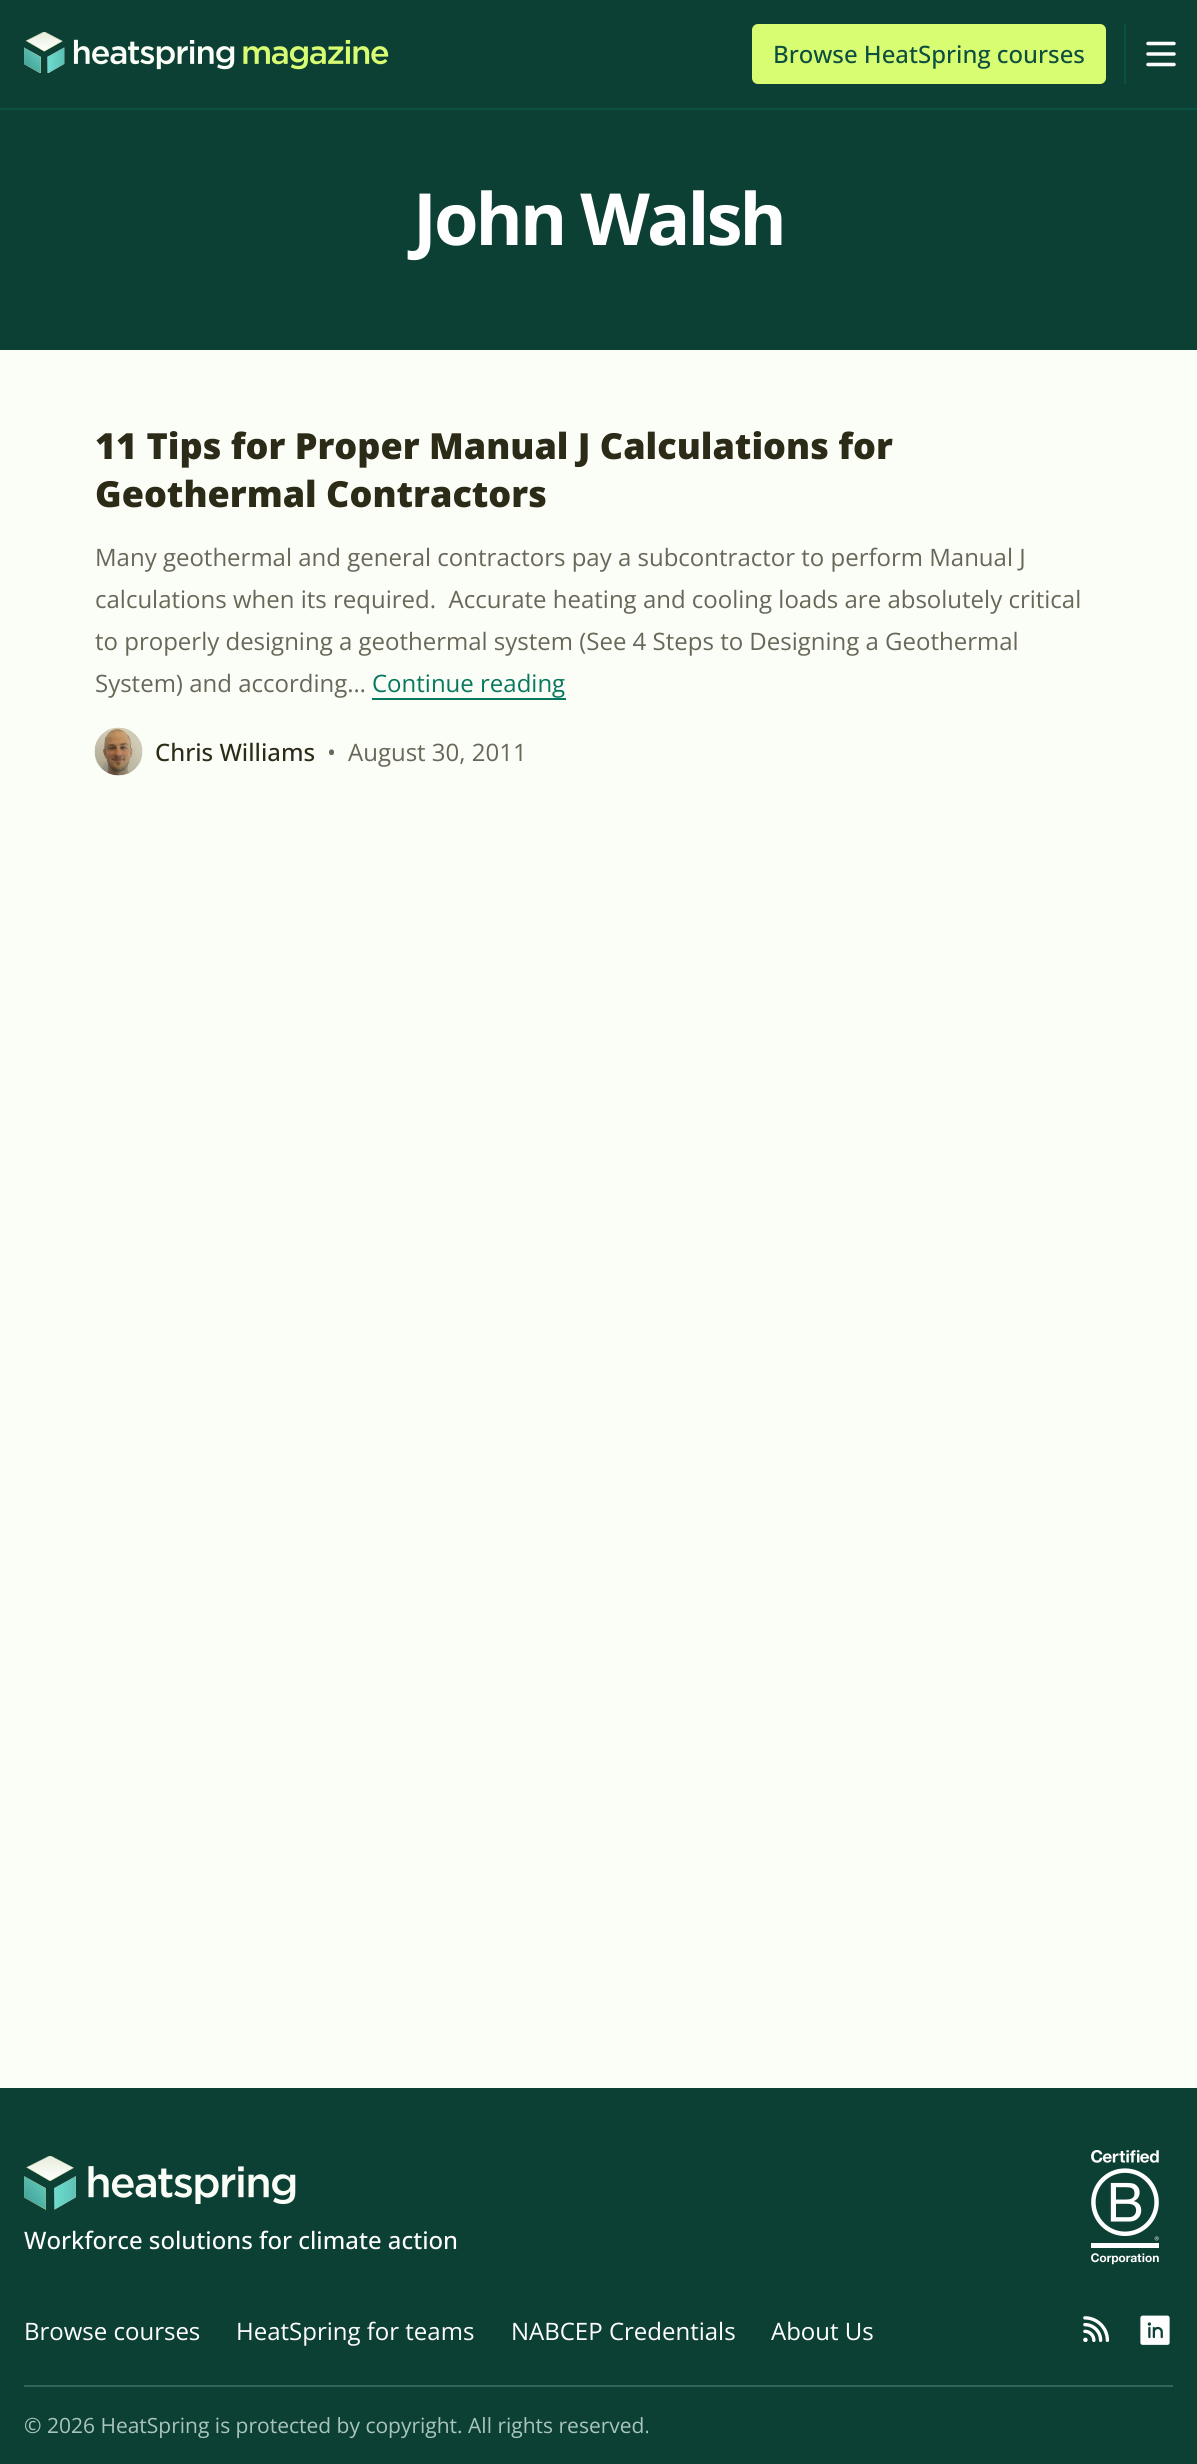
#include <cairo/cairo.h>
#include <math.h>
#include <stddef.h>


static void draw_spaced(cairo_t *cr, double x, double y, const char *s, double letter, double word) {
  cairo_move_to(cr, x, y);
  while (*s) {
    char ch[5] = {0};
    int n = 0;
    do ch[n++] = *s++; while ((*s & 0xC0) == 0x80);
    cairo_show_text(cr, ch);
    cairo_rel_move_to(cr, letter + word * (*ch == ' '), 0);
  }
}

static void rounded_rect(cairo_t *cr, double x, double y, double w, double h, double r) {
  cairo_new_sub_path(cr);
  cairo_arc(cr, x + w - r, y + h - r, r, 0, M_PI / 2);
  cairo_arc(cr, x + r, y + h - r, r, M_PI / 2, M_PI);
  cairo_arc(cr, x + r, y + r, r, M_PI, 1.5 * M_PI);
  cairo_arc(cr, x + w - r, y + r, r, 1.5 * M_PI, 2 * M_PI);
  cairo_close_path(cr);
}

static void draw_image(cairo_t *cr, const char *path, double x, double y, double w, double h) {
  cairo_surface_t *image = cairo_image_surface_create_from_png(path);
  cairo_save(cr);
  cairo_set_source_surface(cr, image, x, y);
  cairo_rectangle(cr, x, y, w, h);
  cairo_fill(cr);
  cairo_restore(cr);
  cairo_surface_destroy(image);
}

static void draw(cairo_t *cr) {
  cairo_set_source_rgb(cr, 251 / 255.0, 253 / 255.0, 247 / 255.0);
  cairo_paint(cr);
  cairo_set_source_rgb(cr, 13 / 255.0, 64 / 255.0, 52 / 255.0);
  cairo_rectangle(cr, 0, 0, 1197, 350);
  cairo_fill(cr);
  cairo_set_source_rgb(cr, 11 / 255.0, 81 / 255.0, 65 / 255.0);
  cairo_rectangle(cr, 0, 108, 1197, 2);
  cairo_fill(cr);
  draw_image(cr, "images/1.png", 24, 32, 365, 41);
  cairo_set_source_rgb(cr, 217 / 255.0, 253 / 255.0, 114 / 255.0);
  rounded_rect(cr, 752, 24, 354, 60, 6);
  cairo_fill(cr);
  cairo_set_source_rgb(cr, 11 / 255.0, 81 / 255.0, 65 / 255.0);
  cairo_rectangle(cr, 1124, 24, 2, 60);
  cairo_fill(cr);
  cairo_new_path(cr);
  cairo_move_to(cr, 1148, 43.5);
  cairo_line_to(cr, 1174, 43.5);
  cairo_move_to(cr, 1148, 54);
  cairo_line_to(cr, 1174, 54);
  cairo_move_to(cr, 1148, 64.5);
  cairo_line_to(cr, 1174, 64.5);
  cairo_set_source_rgb(cr, 1, 1, 1);
  cairo_set_line_width(cr, 3.5);
  cairo_set_line_cap(cr, CAIRO_LINE_CAP_ROUND);
  cairo_set_line_join(cr, CAIRO_LINE_JOIN_ROUND);
  cairo_stroke(cr);
  cairo_set_source_rgb(cr, 7 / 255.0, 120 / 255.0, 94 / 255.0);
  cairo_rectangle(cr, 372, 698, 194, 2);
  cairo_fill(cr);
  draw_image(cr, "images/2.png", 94, 727, 49, 49);
  cairo_set_source_rgb(cr, 13 / 255.0, 64 / 255.0, 52 / 255.0);
  cairo_rectangle(cr, 0, 2088, 1197, 376);
  cairo_fill(cr);
  draw_image(cr, "images/3.png", 24, 2156, 272, 54);
  draw_image(cr, "images/4.png", 1091, 2150, 68, 115);
  draw_image(cr, "images/5.png", 1083, 2316, 27, 26);
  draw_image(cr, "images/6.png", 1140, 2315, 30, 30);
  cairo_set_source_rgb(cr, 52 / 255.0, 101 / 255.0, 91 / 255.0);
  cairo_rectangle(cr, 24, 2385, 1149, 2);
  cairo_fill(cr);
  cairo_select_font_face(cr, "Open Sans Medium", CAIRO_FONT_SLANT_NORMAL, CAIRO_FONT_WEIGHT_NORMAL);
  cairo_set_font_size(cr, 24);
  cairo_set_source_rgb(cr, 12 / 255.0, 78 / 255.0, 63 / 255.0);
  cairo_move_to(cr, 773, 63);
  cairo_show_text(cr, "Browse HeatSpring courses");
  cairo_select_font_face(cr, "Open Sans", CAIRO_FONT_SLANT_NORMAL, CAIRO_FONT_WEIGHT_BOLD);
  cairo_set_font_size(cr, 72);
  cairo_set_source_rgb(cr, 1, 1, 1);
  draw_spaced(cr, 413, 245, "John Walsh", -2.9, 0);
  cairo_select_font_face(cr, "Open Sans ExtraBold", CAIRO_FONT_SLANT_NORMAL, CAIRO_FONT_WEIGHT_NORMAL);
  cairo_set_font_size(cr, 36);
  cairo_set_source_rgb(cr, 43 / 255.0, 43 / 255.0, 23 / 255.0);
  cairo_move_to(cr, 95, 459);
  cairo_show_text(cr, "11 Tips for Proper Manual J Calculations for");
  cairo_move_to(cr, 95, 507);
  cairo_show_text(cr, "Geothermal Contractors");
  cairo_select_font_face(cr, "Open Sans", CAIRO_FONT_SLANT_NORMAL, CAIRO_FONT_WEIGHT_NORMAL);
  cairo_set_font_size(cr, 24);
  cairo_set_source_rgb(cr, 104 / 255.0, 104 / 255.0, 89 / 255.0);
  cairo_move_to(cr, 95, 566);
  cairo_show_text(cr, "Many geothermal and general contractors pay a subcontractor to perform Manual J");
  cairo_move_to(cr, 95, 608);
  cairo_show_text(cr, "calculations when its required.  Accurate heating and cooling loads are absolutely critical");
  cairo_move_to(cr, 95, 650);
  cairo_show_text(cr, "to properly designing a geothermal system (See 4 Steps to Designing a Geothermal");
  cairo_move_to(cr, 95, 692);
  cairo_show_text(cr, "System) and according…");
  cairo_set_source_rgb(cr, 7 / 255.0, 120 / 255.0, 94 / 255.0);
  cairo_move_to(cr, 372, 692);
  cairo_show_text(cr, "Continue reading");
  cairo_select_font_face(cr, "Open Sans Medium", CAIRO_FONT_SLANT_NORMAL, CAIRO_FONT_WEIGHT_NORMAL);
  cairo_set_source_rgb(cr, 43 / 255.0, 43 / 255.0, 23 / 255.0);
  cairo_move_to(cr, 155, 761);
  cairo_show_text(cr, "Chris Williams");
  cairo_select_font_face(cr, "Open Sans", CAIRO_FONT_SLANT_NORMAL, CAIRO_FONT_WEIGHT_NORMAL);
  cairo_set_source_rgb(cr, 104 / 255.0, 104 / 255.0, 89 / 255.0);
  cairo_move_to(cr, 327, 761);
  cairo_show_text(cr, "•");
  cairo_move_to(cr, 348, 761);
  cairo_show_text(cr, "August 30, 2011");
  cairo_select_font_face(cr, "Open Sans Medium", CAIRO_FONT_SLANT_NORMAL, CAIRO_FONT_WEIGHT_NORMAL);
  cairo_set_source_rgb(cr, 1, 1, 1);
  cairo_move_to(cr, 24, 2249);
  cairo_show_text(cr, "Workforce solutions for climate action");
  cairo_select_font_face(cr, "Open Sans", CAIRO_FONT_SLANT_NORMAL, CAIRO_FONT_WEIGHT_NORMAL);
  cairo_move_to(cr, 24, 2340);
  cairo_show_text(cr, "Browse courses");
  cairo_move_to(cr, 236, 2340);
  cairo_show_text(cr, "HeatSpring for teams");
  cairo_move_to(cr, 511, 2340);
  cairo_show_text(cr, "NABCEP Credentials");
  cairo_move_to(cr, 771, 2340);
  cairo_show_text(cr, "About Us");
  cairo_set_font_size(cr, 21);
  cairo_set_source_rgb(cr, 169 / 255.0, 196 / 255.0, 191 / 255.0);
  cairo_move_to(cr, 24, 2433);
  cairo_show_text(cr, "© 2026 HeatSpring is protected by copyright. All rights reserved.");
}

int main(void) {
  cairo_surface_t *surface = cairo_image_surface_create(CAIRO_FORMAT_RGB24, 1197, 2464);
  cairo_t *cr = cairo_create(surface);
  cairo_font_options_t *options = cairo_font_options_create();
  cairo_font_options_set_hint_metrics(options, CAIRO_HINT_METRICS_OFF);
  cairo_font_options_set_hint_style(options, CAIRO_HINT_STYLE_NONE);
  cairo_set_font_options(cr, options);
  cairo_set_miter_limit(cr, 4);
  draw(cr);
  cairo_surface_write_to_png(surface, "out.png");
  cairo_font_options_destroy(options);
  cairo_destroy(cr);
  cairo_surface_destroy(surface);
  return 0;
}
